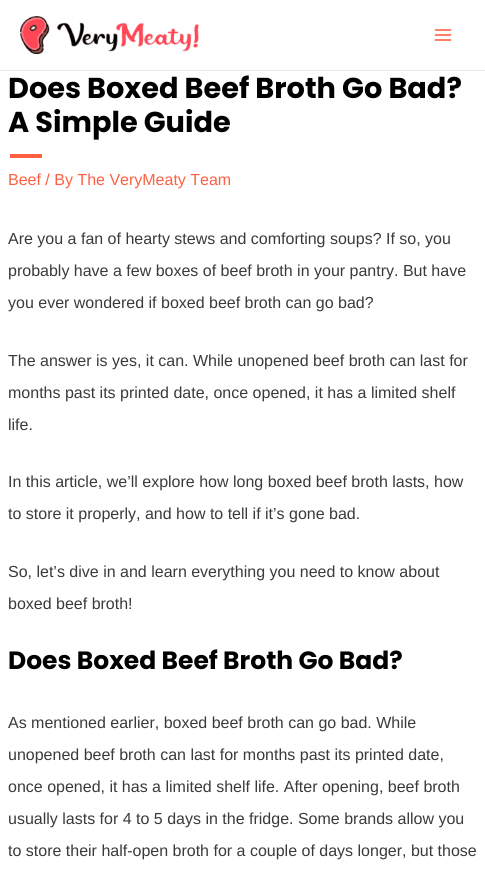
#include <cairo/cairo.h>
#include <math.h>
#include <stddef.h>


static void draw_image(cairo_t *cr, const char *path, double x, double y, double w, double h) {
  cairo_surface_t *image = cairo_image_surface_create_from_png(path);
  cairo_save(cr);
  cairo_set_source_surface(cr, image, x, y);
  cairo_rectangle(cr, x, y, w, h);
  cairo_fill(cr);
  cairo_restore(cr);
  cairo_surface_destroy(image);
}

static void draw(cairo_t *cr) {
  cairo_set_source_rgb(cr, 1, 1, 1);
  cairo_paint(cr);
  cairo_set_source_rgb(cr, 234 / 255.0, 234 / 255.0, 234 / 255.0);
  cairo_rectangle(cr, 0, 70, 485, 1);
  cairo_fill(cr);
  draw_image(cr, "images/1.png", 20, 16, 179, 38);
  draw_image(cr, "images/2.png", 434, 29, 18, 12);
  cairo_set_source_rgb(cr, 1, 95 / 255.0, 66 / 255.0);
  cairo_rectangle(cr, 10, 154, 32, 4);
  cairo_fill(cr);
  cairo_select_font_face(cr, "Poppins", CAIRO_FONT_SLANT_NORMAL, CAIRO_FONT_WEIGHT_BOLD);
  cairo_set_font_size(cr, 28.75);
  cairo_set_source_rgb(cr, 0, 0, 0);
  cairo_move_to(cr, 8, 98);
  cairo_show_text(cr, "Does Boxed Beef Broth Go Bad?");
  cairo_move_to(cr, 8, 132);
  cairo_show_text(cr, "A Simple Guide");
  cairo_select_font_face(cr, "Liberation Sans", CAIRO_FONT_SLANT_NORMAL, CAIRO_FONT_WEIGHT_NORMAL);
  cairo_set_font_size(cr, 16);
  cairo_set_source_rgb(cr, 1, 95 / 255.0, 66 / 255.0);
  cairo_move_to(cr, 8, 185);
  cairo_show_text(cr, "Beef / By The VeryMeaty Team");
  cairo_set_source_rgb(cr, 58 / 255.0, 58 / 255.0, 58 / 255.0);
  cairo_move_to(cr, 8, 244);
  cairo_show_text(cr, "Are you a fan of hearty stews and comforting soups? If so, you");
  cairo_move_to(cr, 8, 276);
  cairo_show_text(cr, "probably have a few boxes of beef broth in your pantry. But have");
  cairo_move_to(cr, 8, 308);
  cairo_show_text(cr, "you ever wondered if boxed beef broth can go bad?");
  cairo_move_to(cr, 8, 366);
  cairo_show_text(cr, "The answer is yes, it can. While unopened beef broth can last for");
  cairo_move_to(cr, 8, 398);
  cairo_show_text(cr, "months past its printed date, once opened, it has a limited shelf");
  cairo_move_to(cr, 8, 430);
  cairo_show_text(cr, "life.");
  cairo_move_to(cr, 8, 487);
  cairo_show_text(cr, "In this article, we’ll explore how long boxed beef broth lasts, how");
  cairo_move_to(cr, 8, 519);
  cairo_show_text(cr, "to store it properly, and how to tell if it’s gone bad.");
  cairo_move_to(cr, 8, 577);
  cairo_show_text(cr, "So, let’s dive in and learn everything you need to know about");
  cairo_move_to(cr, 8, 609);
  cairo_show_text(cr, "boxed beef broth!");
  cairo_select_font_face(cr, "Poppins", CAIRO_FONT_SLANT_NORMAL, CAIRO_FONT_WEIGHT_BOLD);
  cairo_set_font_size(cr, 25);
  cairo_set_source_rgb(cr, 0, 0, 0);
  cairo_move_to(cr, 8, 669);
  cairo_show_text(cr, "Does Boxed Beef Broth Go Bad?");
  cairo_select_font_face(cr, "Liberation Sans", CAIRO_FONT_SLANT_NORMAL, CAIRO_FONT_WEIGHT_NORMAL);
  cairo_set_font_size(cr, 16);
  cairo_set_source_rgb(cr, 58 / 255.0, 58 / 255.0, 58 / 255.0);
  cairo_move_to(cr, 8, 728);
  cairo_show_text(cr, "As mentioned earlier, boxed beef broth can go bad. While");
  cairo_move_to(cr, 8, 760);
  cairo_show_text(cr, "unopened beef broth can last for months past its printed date,");
  cairo_move_to(cr, 8, 792);
  cairo_show_text(cr, "once opened, it has a limited shelf life. After opening, beef broth");
  cairo_move_to(cr, 8, 824);
  cairo_show_text(cr, "usually lasts for 4 to 5 days in the fridge. Some brands allow you");
  cairo_move_to(cr, 8, 856);
  cairo_show_text(cr, "to store their half-open broth for a couple of days longer, but those");
}

int main(void) {
  cairo_surface_t *surface = cairo_image_surface_create(CAIRO_FORMAT_RGB24, 485, 878);
  cairo_t *cr = cairo_create(surface);
  cairo_font_options_t *options = cairo_font_options_create();
  cairo_font_options_set_hint_metrics(options, CAIRO_HINT_METRICS_OFF);
  cairo_font_options_set_hint_style(options, CAIRO_HINT_STYLE_NONE);
  cairo_set_font_options(cr, options);
  cairo_set_miter_limit(cr, 4);
  draw(cr);
  cairo_surface_write_to_png(surface, "out.png");
  cairo_font_options_destroy(options);
  cairo_destroy(cr);
  cairo_surface_destroy(surface);
  return 0;
}
